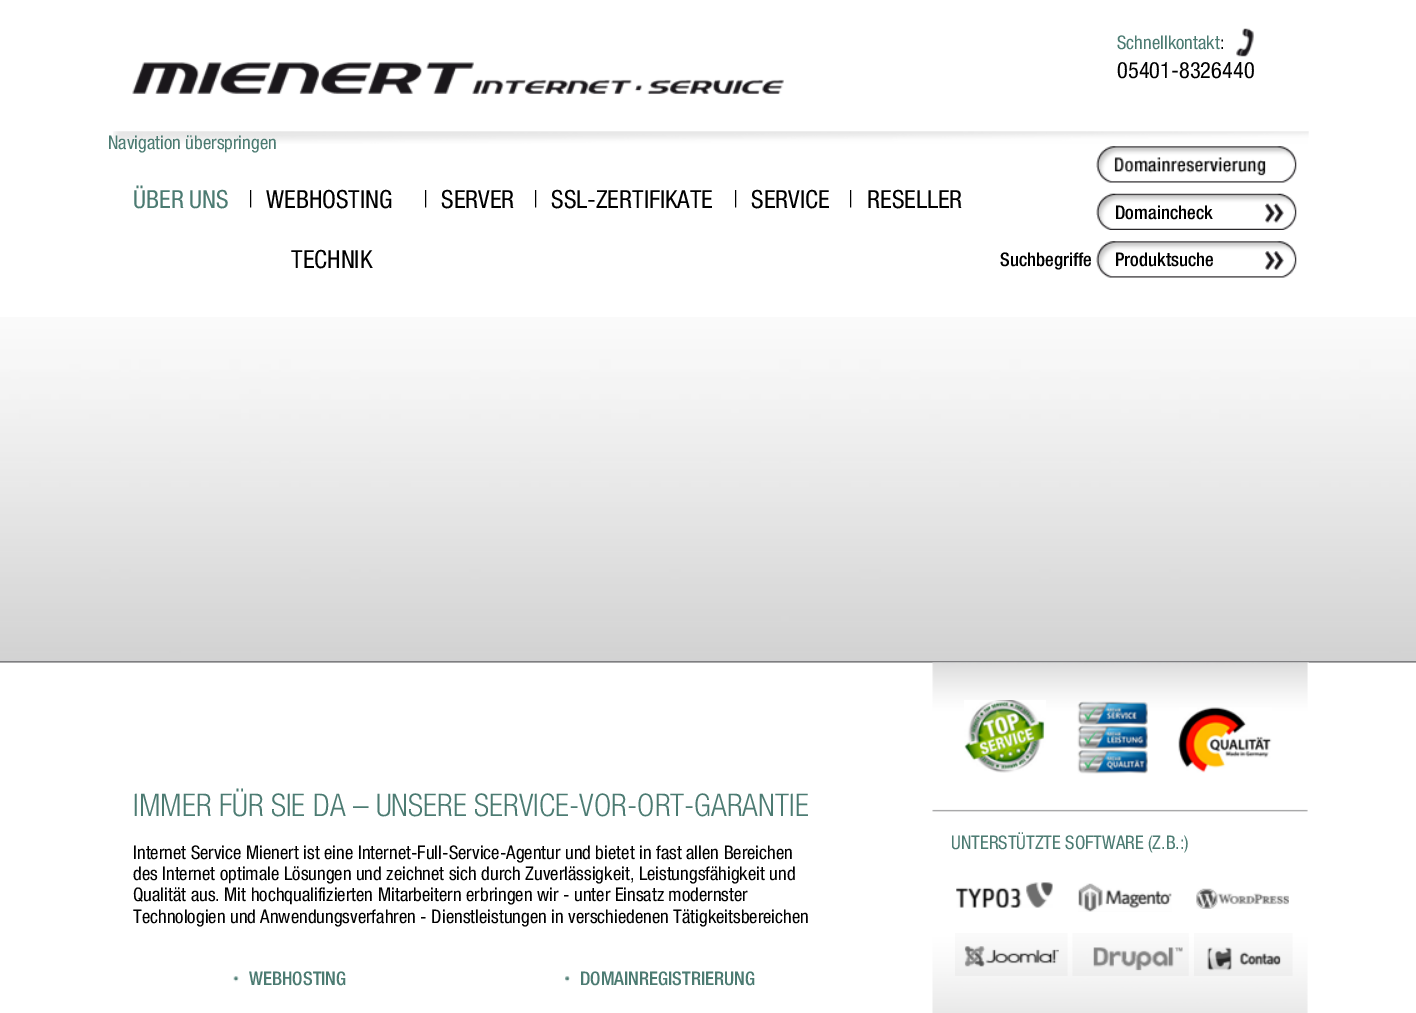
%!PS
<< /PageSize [1416 1013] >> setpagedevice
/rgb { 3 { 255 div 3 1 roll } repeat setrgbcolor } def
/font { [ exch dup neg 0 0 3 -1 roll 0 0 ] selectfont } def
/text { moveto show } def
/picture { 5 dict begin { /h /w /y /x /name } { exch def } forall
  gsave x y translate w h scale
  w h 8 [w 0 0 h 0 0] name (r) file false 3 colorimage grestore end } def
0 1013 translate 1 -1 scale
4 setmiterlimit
255 255 255 rgb
0 0 1416 1013 rectfill
(img_01.rgb) 0 317 1416 346 picture
(img_02.rgb) 132 62 652 32 picture
(img_03.rgb) 1236 28 18 29 picture
(img_04.rgb) 113 131 1196 13 picture
(img_05.rgb) 250 190 2 18 picture
(img_05.rgb) 425 190 2 18 picture
(img_05.rgb) 535 190 2 18 picture
(img_05.rgb) 735 190 2 18 picture
(img_05.rgb) 850 190 2 18 picture
(img_06.rgb) 1096 146 201 37 picture
(img_07.rgb) 1096 193 201 37 picture
(img_08.rgb) 1265 203 19 20 picture
(img_09.rgb) 1096 241 201 37 picture
(img_10.rgb) 1265 251 19 19 picture
(img_11.rgb) 233 976 6 6 picture
(img_12.rgb) 565 976 5 6 picture
(img_13.rgb) 932 662 377 351 picture
(img_14.rgb) 964 700 82 73 picture
(img_15.rgb) 1077 701 71 73 picture
(img_16.rgb) 1178 707 94 66 picture
(img_17.rgb) 932 809 376 3 picture
(img_18.rgb) 956 882 97 26 picture
(img_19.rgb) 1078 883 94 29 picture
(img_20.rgb) 1196 888 93 21 picture
(img_21.rgb) 955 933 113 43 picture
(img_22.rgb) 1072 933 117 43 picture
(img_23.rgb) 1194 933 99 43 picture
/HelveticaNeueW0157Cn-Regular 18.75 font
76 123 114 rgb
(Schnellkontakt) 1117 49 text
0 0 0 rgb
(:) 1220 49 text
/HelveticaNeueW0157Cn-Regular 22.5 font
(05401-8326440) 1117 78 text
/HelveticaNeueW0157Cn-Regular 18.75 font
76 123 114 rgb
(Navigation überspringen) 108 149 text
/HelveticaNeueW0157Cn-Regular 25 font
(ÜBER UNS) 133 208 text
0 0 0 rgb
(WEBHOSTING) 266 208 text
(TECHNIK) 291 268 text
(SERVER) 441 208 text
(SSL-ZERTIFIKATE) 551 208 text
(SERVICE) 751 208 text
(RESELLER) 867 208 text
/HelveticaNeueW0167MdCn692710-Regular 18.75 font
(Domaincheck) 1115 219 text
(Suchbegriffe) 1000 266 text
(Produktsuche) 1115 266 text
/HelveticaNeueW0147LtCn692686-Regular 31.25 font
76 123 114 rgb
(IMMER FÜR SIE DA – UNSERE SERVICE-VOR-ORT-GARANTIE) 133 816 text
/HelveticaNeueW0157Cn-Regular 18.75 font
0 0 0 rgb
(Internet Service Mienert ist eine Internet-Full-Service-Agentur und bietet in fast allen Bereichen) 133 859 text
(des Internet optimale Lösungen und zeichnet sich durch Zuverlässigkeit, Leistungsfähigkeit und) 133 880 text
(Qualität aus. Mit hochqualifizierten Mitarbeitern erbringen wir - unter Einsatz modernster) 133 901 text
(Technologien und Anwendungsverfahren - Dienstleistungen in verschiedenen Tätigkeitsbereichen) 133 923 text
/HelveticaNeueW0167MdCn692710-Regular 18.75 font
76 123 114 rgb
(WEBHOSTING) 249 985 text
(DOMAINREGISTRIERUNG) 580 985 text
/HelveticaNeueW0157Cn-Regular 18.75 font
(UNTERSTÜTZTE SOFTWARE \(Z.B.:\)) 951 849 text
showpage
